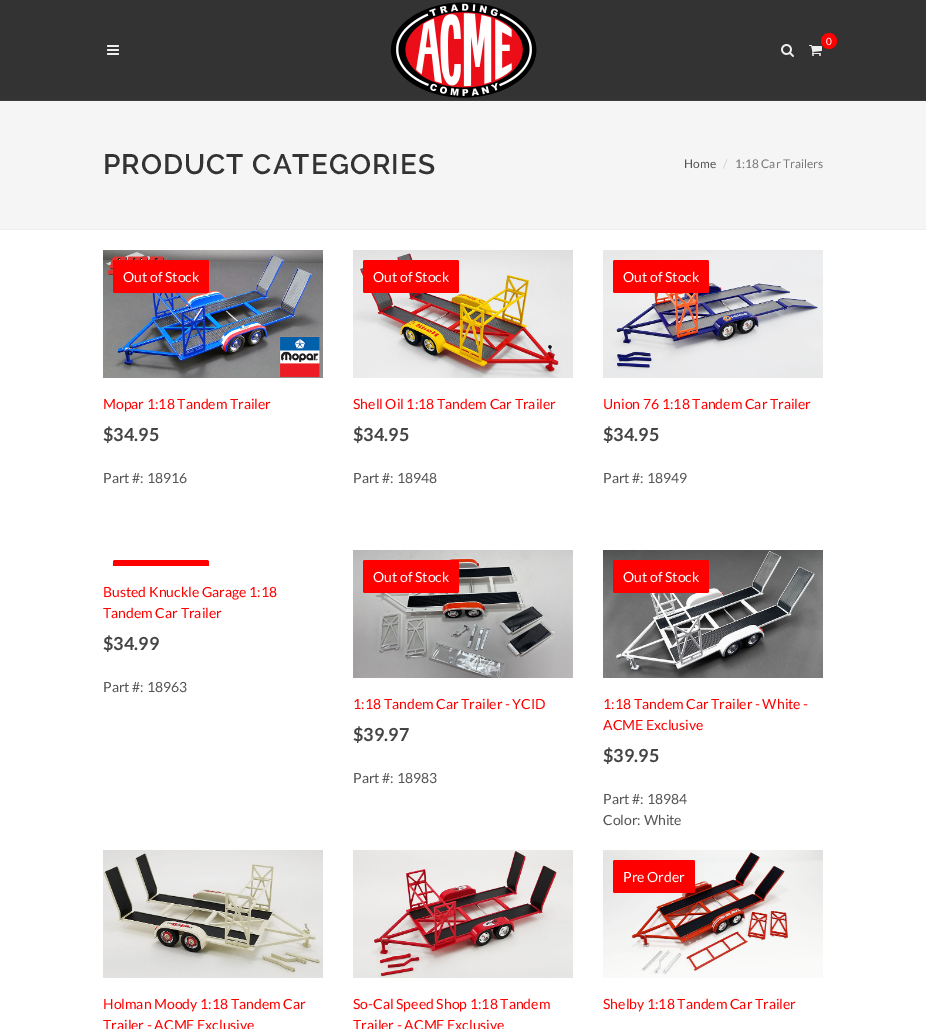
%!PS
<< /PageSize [926 1029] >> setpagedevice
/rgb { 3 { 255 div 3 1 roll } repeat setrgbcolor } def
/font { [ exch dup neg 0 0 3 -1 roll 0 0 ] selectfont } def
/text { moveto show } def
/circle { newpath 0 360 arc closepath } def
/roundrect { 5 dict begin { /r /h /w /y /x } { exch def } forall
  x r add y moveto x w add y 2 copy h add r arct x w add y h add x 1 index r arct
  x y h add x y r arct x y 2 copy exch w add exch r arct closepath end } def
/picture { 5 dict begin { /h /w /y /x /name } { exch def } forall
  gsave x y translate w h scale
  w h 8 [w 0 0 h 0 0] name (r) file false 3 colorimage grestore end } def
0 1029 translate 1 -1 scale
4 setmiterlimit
255 255 255 rgb
0 0 926 1029 rectfill
51 51 51 rgb
0 0 926 100 rectfill
61 61 61 rgb
0 100 926 1 rectfill
(img_01.rgb) 390 2 147 96 picture
(img_02.rgb) 809 45 13 11 picture
255 0 0 rgb
829 41 8 circle fill
(img_03.rgb) 781 44 13 13 picture
(img_04.rgb) 107 45 12 10 picture
245 245 245 rgb
0 101 926 128 rectfill
238 238 238 rgb
0 229 926 1 rectfill
(img_05.rgb) 103 250 220 128 picture
255 0 0 rgb
113 260 96 33 2 roundrect fill
(img_06.rgb) 353 250 220 128 picture
363 260 96 33 2 roundrect fill
(img_07.rgb) 603 250 220 128 picture
613 260 96 33 2 roundrect fill
115 560 moveto 92 0 rlineto 1 0 2 1 2 2 rcurveto 0 4 rlineto -96 0 rlineto 0 -4 rlineto 0 -1 1 -2 2 -2 rcurveto closepath fill
(img_08.rgb) 353 550 220 128 picture
363 560 96 33 2 roundrect fill
(img_09.rgb) 603 550 220 128 picture
613 560 96 33 2 roundrect fill
(img_10.rgb) 103 850 220 128 picture
(img_11.rgb) 353 850 220 128 picture
(img_12.rgb) 603 850 220 128 picture
613 860 82 33 2 roundrect fill
/Lato-Regular 10 font
255 255 255 rgb
(0) 826 45 text
/Raleway-SemiBold 28 font
51 51 51 rgb
103 174 moveto 1 0 (PRODUCT CATEGORIES) ashow
/Lato-Regular 12 font
85 85 85 rgb
(Home) 684 168 text
204 204 204 rgb
(/) 723 168 text
119 119 119 rgb
(1:18 Car Trailers) 735 168 text
/Lato-Regular 14 font
255 255 255 rgb
(Out of Stock) 123 282 text
255 0 0 rgb
(Mopar 1:18 Tandem Trailer) 103 409 text
/Lato-Bold 18 font
68 68 68 rgb
($34.95) 103 441 text
/Lato-Regular 14 font
85 85 85 rgb
(Part #: 18916) 103 483 text
255 255 255 rgb
(Out of Stock) 373 282 text
255 0 0 rgb
(Shell Oil 1:18 Tandem Car Trailer) 353 409 text
/Lato-Bold 18 font
68 68 68 rgb
($34.95) 353 441 text
/Lato-Regular 14 font
85 85 85 rgb
(Part #: 18948) 353 483 text
255 255 255 rgb
(Out of Stock) 623 282 text
255 0 0 rgb
(Union 76 1:18 Tandem Car Trailer) 603 409 text
/Lato-Bold 18 font
68 68 68 rgb
($34.95) 603 441 text
/Lato-Regular 14 font
85 85 85 rgb
(Part #: 18949) 603 483 text
255 0 0 rgb
(Busted Knuckle Garage 1:18) 103 597 text
(Tandem Car Trailer) 103 618 text
/Lato-Bold 18 font
68 68 68 rgb
($34.99) 103 650 text
/Lato-Regular 14 font
85 85 85 rgb
(Part #: 18963) 103 692 text
255 255 255 rgb
(Out of Stock) 373 582 text
255 0 0 rgb
(1:18 Tandem Car Trailer - YCID) 353 709 text
/Lato-Bold 18 font
68 68 68 rgb
($39.97) 353 741 text
/Lato-Regular 14 font
85 85 85 rgb
(Part #: 18983) 353 783 text
255 255 255 rgb
(Out of Stock) 623 582 text
255 0 0 rgb
(1:18 Tandem Car Trailer - White -) 603 709 text
(ACME Exclusive) 603 730 text
/Lato-Bold 18 font
68 68 68 rgb
($39.95) 603 762 text
/Lato-Regular 14 font
85 85 85 rgb
(Part #: 18984) 603 804 text
(Color: White) 603 825 text
255 0 0 rgb
(Holman Moody 1:18 Tandem Car) 103 1009 text
(Trailer - ACME Exclusive) 103 1030 text
(So-Cal Speed Shop 1:18 Tandem) 353 1009 text
(Trailer - ACME Exclusive) 353 1030 text
255 255 255 rgb
(Pre Order) 623 882 text
255 0 0 rgb
(Shelby 1:18 Tandem Car Trailer) 603 1009 text
showpage
